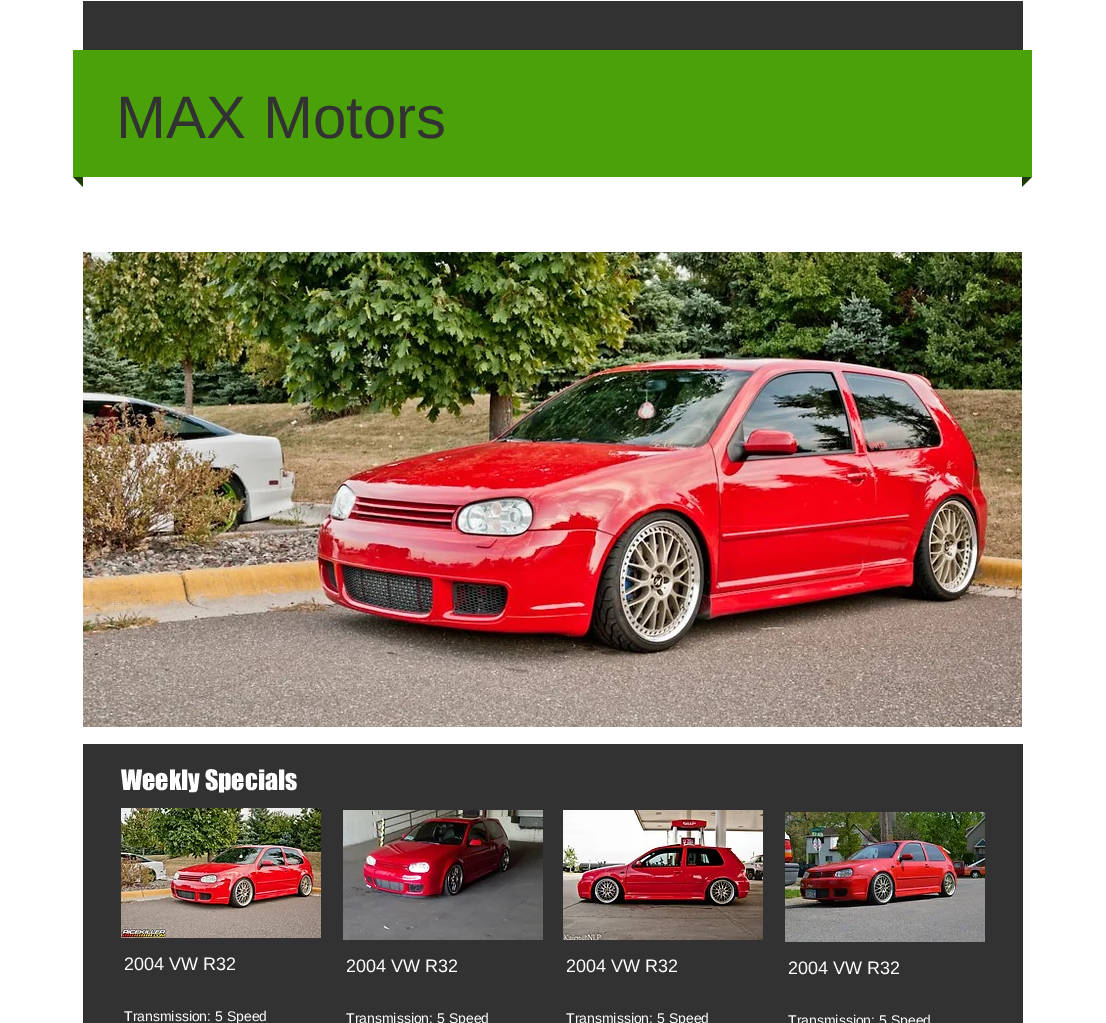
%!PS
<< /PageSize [1106 1023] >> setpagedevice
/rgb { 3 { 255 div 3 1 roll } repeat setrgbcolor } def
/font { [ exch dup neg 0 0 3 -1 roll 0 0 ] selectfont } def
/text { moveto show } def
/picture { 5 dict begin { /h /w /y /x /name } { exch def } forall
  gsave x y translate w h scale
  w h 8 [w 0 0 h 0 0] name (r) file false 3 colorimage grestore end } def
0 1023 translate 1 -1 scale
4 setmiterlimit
255 255 255 rgb
0 0 1106 1023 rectfill
50 50 50 rgb
83 1 940 49 rectfill
75 161 10 rgb
73 50 959 127 rectfill
31 59 5 rgb
73 177 moveto 10 0 rlineto 0 10 rlineto closepath fill
1022 177 moveto 10 0 rlineto -10 10 rlineto closepath fill
(img_01.rgb) 83 252 939 475 picture
50 50 50 rgb
83 744 940 279 rectfill
(img_02.rgb) 121 808 200 130 picture
(img_03.rgb) 343 810 200 130 picture
(img_04.rgb) 563 810 200 130 picture
(img_05.rgb) 785 812 200 130 picture
/LiberationSans-Regular 60 font
(MAX Motors) 116 138 text
/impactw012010-Regular 26 font
255 255 255 rgb
(Weekly Specials) 121 790 text
/LiberationSans-Regular 18 font
(2004 VW R32) 124 970 text
(2004 VW R32) 346 972 text
(2004 VW R32) 566 972 text
(2004 VW R32) 788 974 text
/LiberationSans-Regular 14 font
(Transmission: 5 Speed) 124 1021 text
(Transmission: 5 Speed) 346 1023 text
(Transmission: 5 Speed) 566 1023 text
(Transmission: 5 Speed) 788 1025 text
showpage
